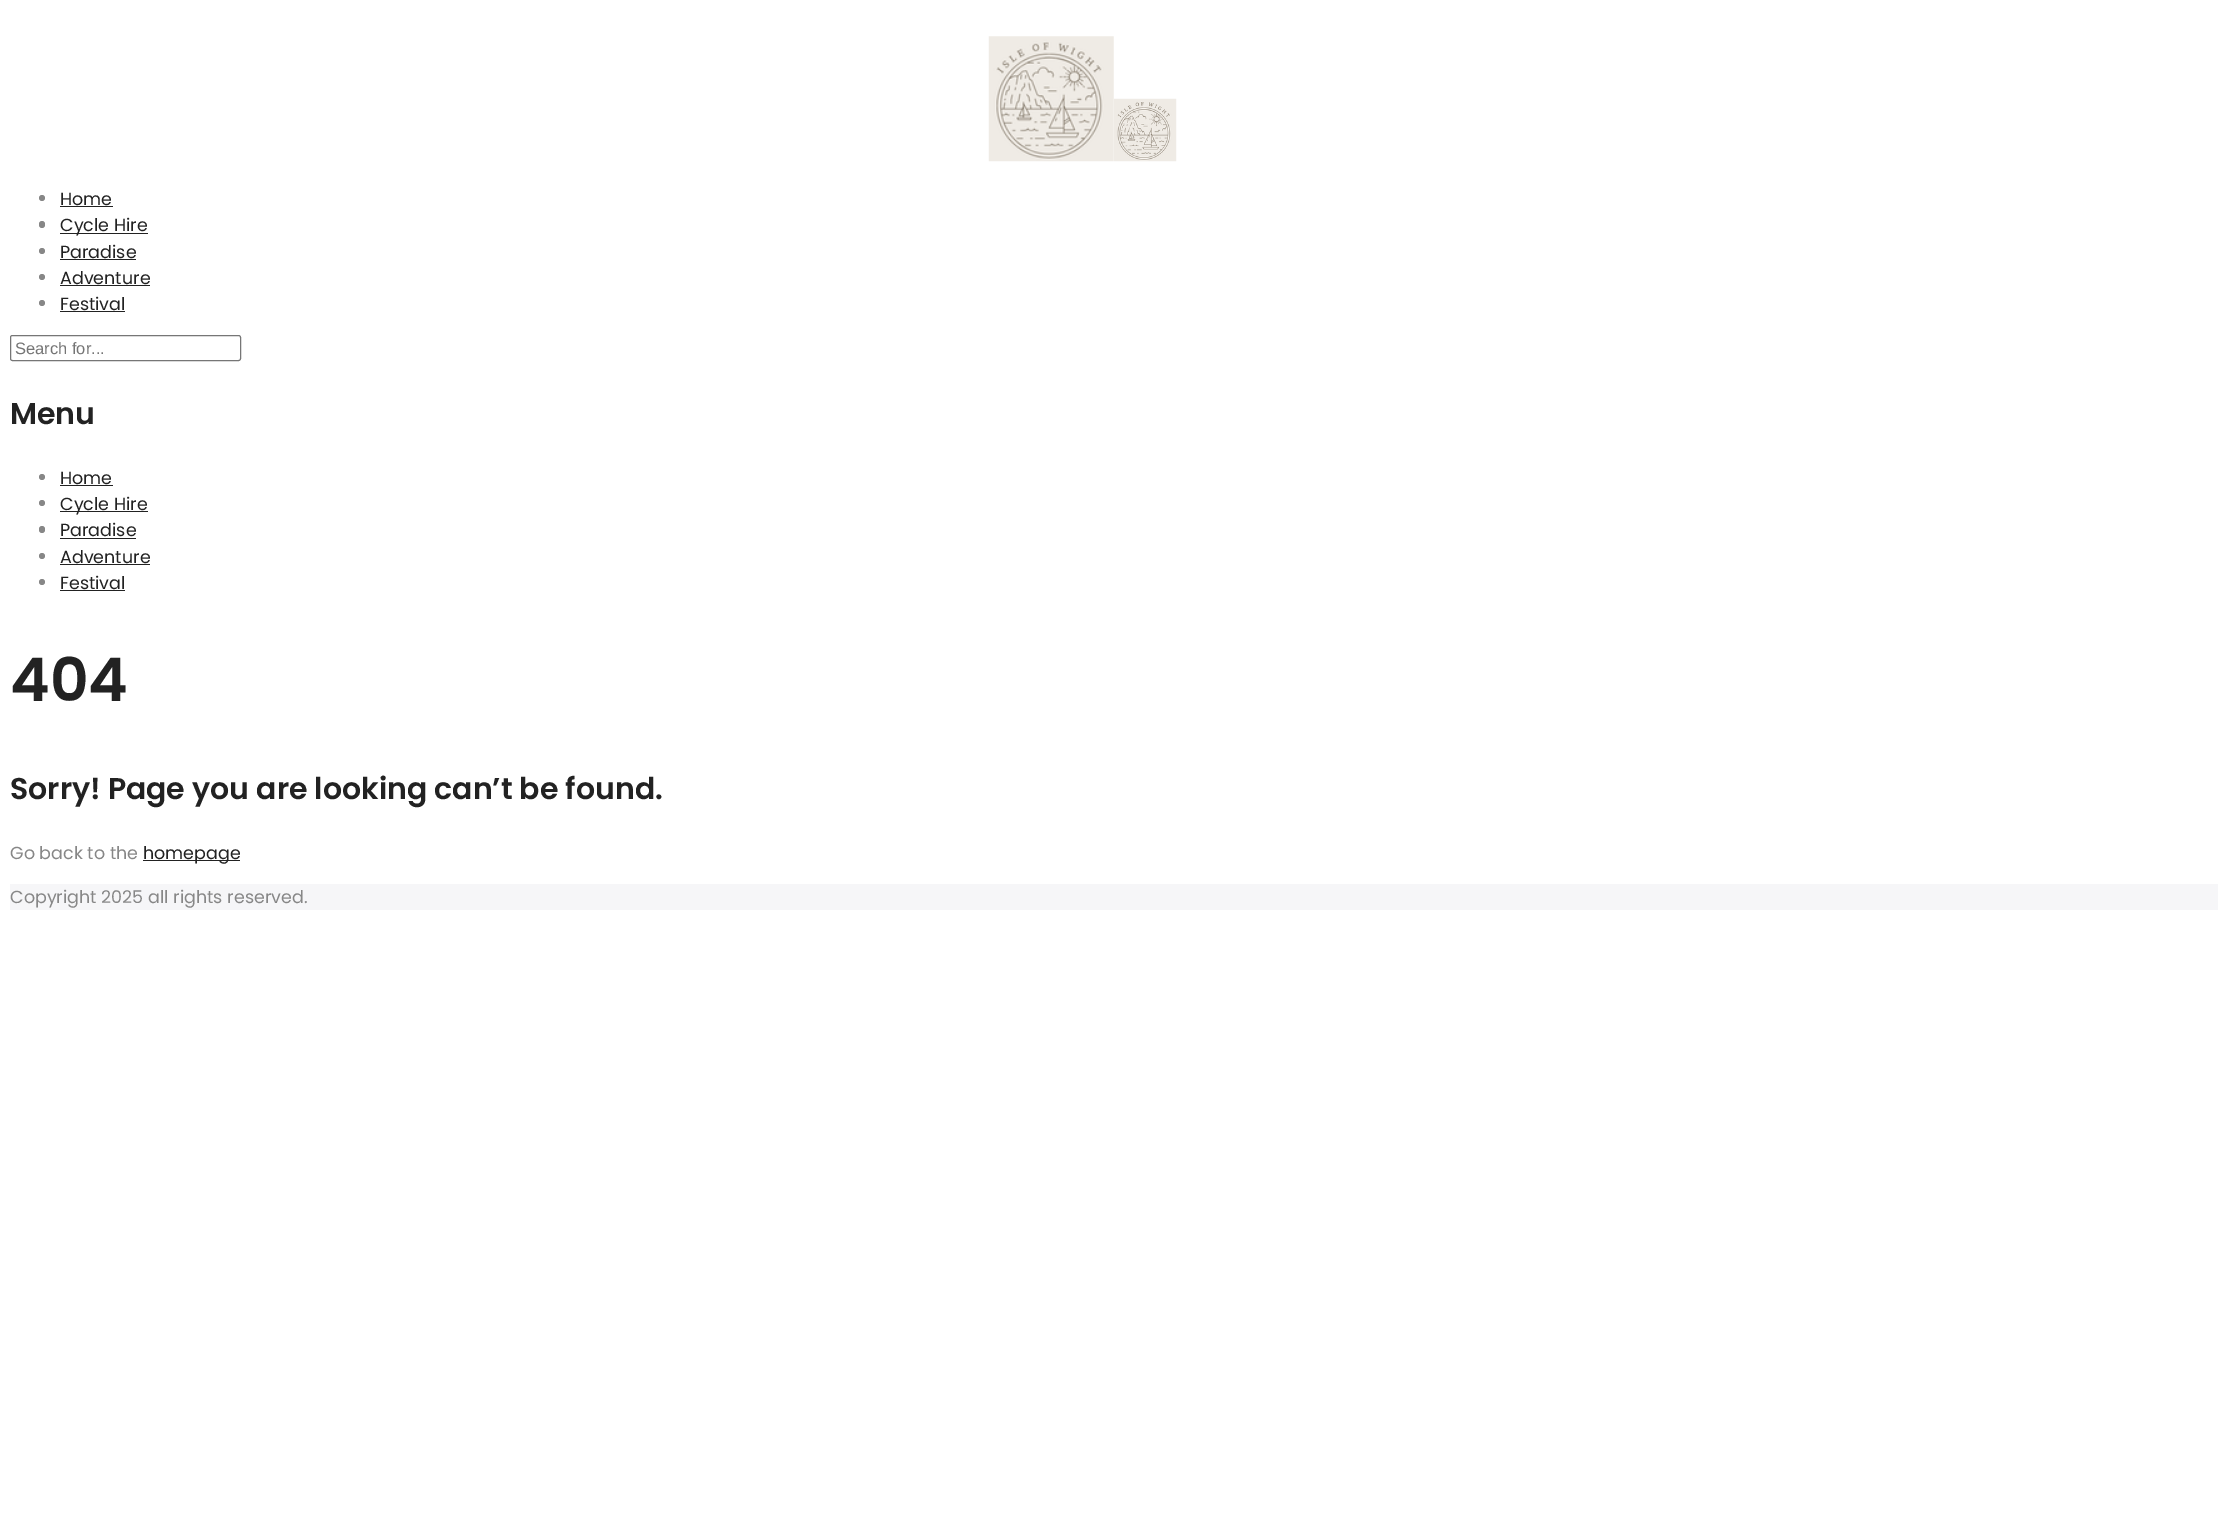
%!PS
<< /PageSize [2227 1518] >> setpagedevice
/rgb { 3 { 255 div 3 1 roll } repeat setrgbcolor } def
/font { [ exch dup neg 0 0 3 -1 roll 0 0 ] selectfont } def
/text { moveto show } def
/circle { newpath 0 360 arc closepath } def
/roundrect { 5 dict begin { /r /h /w /y /x } { exch def } forall
  x r add y moveto x w add y 2 copy h add r arct x w add y h add x 1 index r arct
  x y h add x y r arct x y 2 copy exch w add exch r arct closepath end } def
/picture { 5 dict begin { /h /w /y /x /name } { exch def } forall
  gsave x y translate w h scale
  w h 8 [w 0 0 h 0 0] name (r) file false 3 colorimage grestore end } def
0 1518 translate 1 -1 scale
4 setmiterlimit
255 255 255 rgb
0 0 2227 1518 rectfill
(img_01.rgb) 988 36 126 126 picture
(img_02.rgb) 1114 98 63 64 picture
135 135 135 rgb
42 198 3 circle fill
34 34 34 rgb
60 206 53 1 rectfill
135 135 135 rgb
39 221 6 7 3 roundrect fill
34 34 34 rgb
60 233 88 1 rectfill
135 135 135 rgb
42 251 3 circle fill
34 34 34 rgb
60 259 76 1 rectfill
135 135 135 rgb
42 277 3 circle fill
34 34 34 rgb
60 285 90 1 rectfill
135 135 135 rgb
42 303 3 circle fill
34 34 34 rgb
60 311 65 1 rectfill
118 118 118 rgb
10.5 335.5 230 25 2 roundrect stroke
135 135 135 rgb
42 477 3 circle fill
34 34 34 rgb
60 485 53 1 rectfill
135 135 135 rgb
42 503 3 circle fill
34 34 34 rgb
60 511 88 1 rectfill
135 135 135 rgb
39 526 6 7 3 roundrect fill
34 34 34 rgb
60 538 76 1 rectfill
135 135 135 rgb
42 556 3 circle fill
34 34 34 rgb
60 564 90 1 rectfill
135 135 135 rgb
42 582 3 circle fill
34 34 34 rgb
60 590 65 1 rectfill
143 860 97 1 rectfill
246 246 248 rgb
10 884 2208 26 rectfill
/Poppins-Regular 17.5 font
34 34 34 rgb
(Home) 60 205 text
(Cycle Hire) 60 231 text
(Paradise) 60 258 text
(Adventure) 60 284 text
(Festival) 60 310 text
/LiberationSans-Regular 16.5 font
117 117 117 rgb
(Search for...) 15 354 text
/Poppins-SemiBold 30 font
34 34 34 rgb
(Menu) 10 424 text
/Poppins-Regular 17.5 font
(Home) 60 484 text
(Cycle Hire) 60 510 text
(Paradise) 60 536 text
(Adventure) 60 563 text
(Festival) 60 589 text
/Poppins-SemiBold 60 font
(404) 10 701 text
/Poppins-SemiBold 30 font
(Sorry! Page you are looking can’t be found.) 10 799 text
/Poppins-Regular 17.5 font
135 135 135 rgb
(Go back to the) 10 859 text
34 34 34 rgb
(homepage) 143 859 text
135 135 135 rgb
(Copyright 2025 all rights reserved.) 10 903 text
showpage
